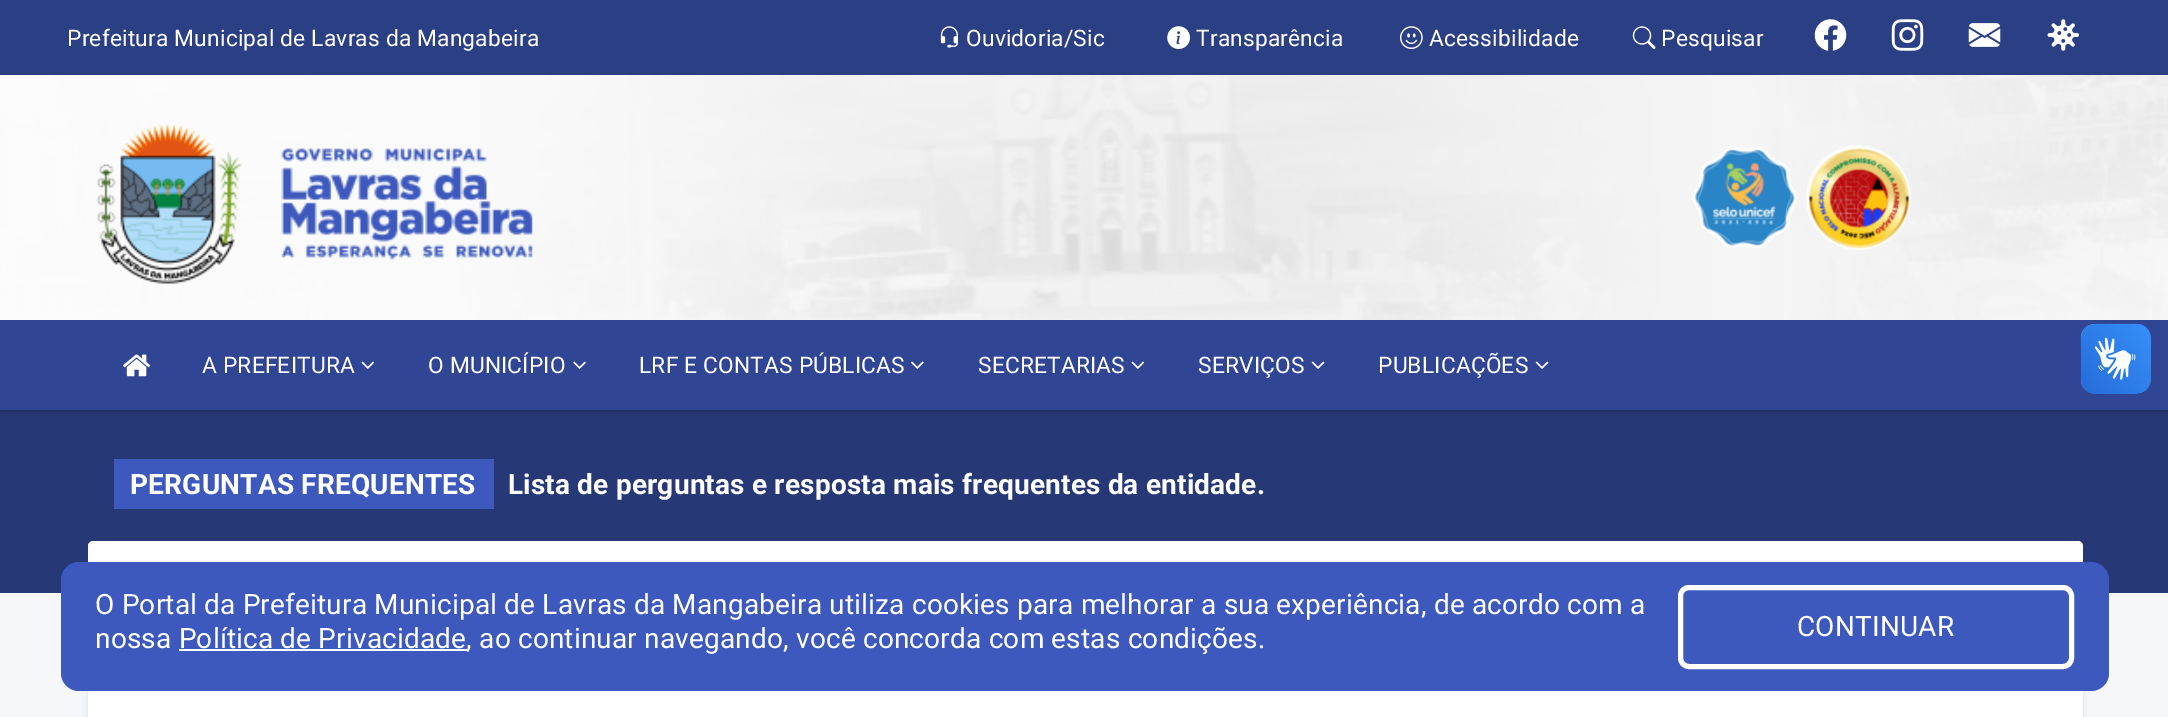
%!PS
<< /PageSize [2168 717] /PageUsesTransparency true >> setpagedevice
/rgb { 3 { 255 div 3 1 roll } repeat setrgbcolor } def
/font { [ exch dup neg 0 0 3 -1 roll 0 0 ] selectfont } def
/alpha { dup .setfillconstantalpha .setstrokeconstantalpha } def
/roundrect { 5 dict begin { /r /h /w /y /x } { exch def } forall
  x r add y moveto x w add y 2 copy h add r arct x w add y h add x 1 index r arct
  x y h add x y r arct x y 2 copy exch w add exch r arct closepath end } def
/shadow { 12 dict begin { /a /b /q /h /w /y /x } { exch def } forall gsave /was 0 def
  9 -2 -9 { dup b mul 4 div /e exch def 1 sub .425 mul 2.718 exch exp 1 add a .99 .min exch div /now exch def
    1 1 now sub 1 was sub div sub alpha /was now def
    w h .min e 2 mul add 0 gt { x e sub y e sub w e 2 mul add h e 2 mul add
      q e add b .6 mul add w h .min 2 div e add .min 0 .max roundrect fill } if } for grestore end } def
/picture { 5 dict begin { /h /w /y /x /name } { exch def } forall
  gsave x y translate w h scale
  w h 8 [w 0 0 h 0 0] name (r) file false 3 colorimage grestore end } def
0 .pushpdf14devicefilter
0 717 translate 1 -1 scale
4 setmiterlimit
246 247 248 rgb
0 0 2168 717 rectfill
3 0 71 rgb
88 543 1995 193 11 2.5 0.09 shadow
38 56 118 rgb
0 410 2168 183 rectfill
0 0 0 rgb
0 2 2168 409 0 2 0.3 shadow
(img_01.rgb) 0 75 2168 245 picture
43 63 133 rgb
0 0 2168 75 rectfill
(img_02.rgb) 940 26 18 22 picture
(img_03.rgb) 1167 26 23 23 picture
(img_04.rgb) 1400 26 23 23 picture
(img_05.rgb) 1632 26 24 23 picture
(img_06.rgb) 1814 19 33 32 picture
(img_07.rgb) 1891 19 33 32 picture
(img_08.rgb) 1968 23 33 24 picture
(img_09.rgb) 2047 19 32 32 picture
(img_10.rgb) 96 124 437 160 picture
(img_11.rgb) 1692 147 105 101 picture
(img_12.rgb) 1806 145 105 105 picture
48 70 148 rgb
0 320 2168 90 rectfill
(img_13.rgb) 123 354 28 23 picture
(img_14.rgb) 361 361 14 8 picture
(img_15.rgb) 573 361 13 8 picture
(img_16.rgb) 911 361 13 8 picture
(img_14.rgb) 1131 361 14 8 picture
(img_17.rgb) 1311 361 14 8 picture
(img_17.rgb) 1535 361 14 8 picture
(img_18.rgb) 2080 323 71 71 picture
(img_19.rgb) 2081 324 70 70 picture
61 89 189 rgb
114 459 380 50 rectfill
255 255 255 rgb
88 691 1995 26 rectfill
88 541 1995 70 5 roundrect fill
61 89 189 rgb
61 562 2048 129 18 roundrect fill
255 255 255 rgb
179 649 288 2 rectfill
5 setlinewidth
1680.5 587.5 391 79 8.5 roundrect stroke
/Roboto-Regular 22.75 font
67 46 moveto 0.18 0 (Prefeitura Municipal de Lavras da Mangabeira) ashow
966 46 moveto 0.18 0 (Ouvidoria/Sic) ashow
1196 46 moveto 0.18 0 (Transparência) ashow
1429 46 moveto 0.18 0 (Acessibilidade) ashow
1661 46 moveto 0.18 0 (Pesquisar) ashow
202 373 moveto 0.18 0 (A PREFEITURA) ashow
428 373 moveto 0.18 0 (O MUNICÍPIO) ashow
639 373 moveto 0.18 0 (LRF E CONTAS PÚBLICAS) ashow
978 373 moveto 0.18 0 (SECRETARIAS) ashow
1198 373 moveto 0.18 0 (SERVIÇOS) ashow
1378 373 moveto 0.18 0 (PUBLICAÇÕES) ashow
/Roboto-Bold 28 font
130 494 moveto 0.18 0 (PERGUNTAS FREQUENTES) ashow
508 494 moveto 0.18 0 (Lista de perguntas e resposta mais frequentes da entidade.) ashow
/Roboto-Regular 28 font
95 614 moveto 0.18 0 (O Portal da Prefeitura Municipal de Lavras da Mangabeira utiliza cookies para melhorar a sua experiência, de acordo com a) ashow
95 648 moveto 0.18 0 (nossa Política de Privacidade, ao continuar navegando, você concorda com estas condições.) ashow
1797 636 moveto 0.18 0 (CONTINUAR) ashow
.poppdf14devicefilter showpage
